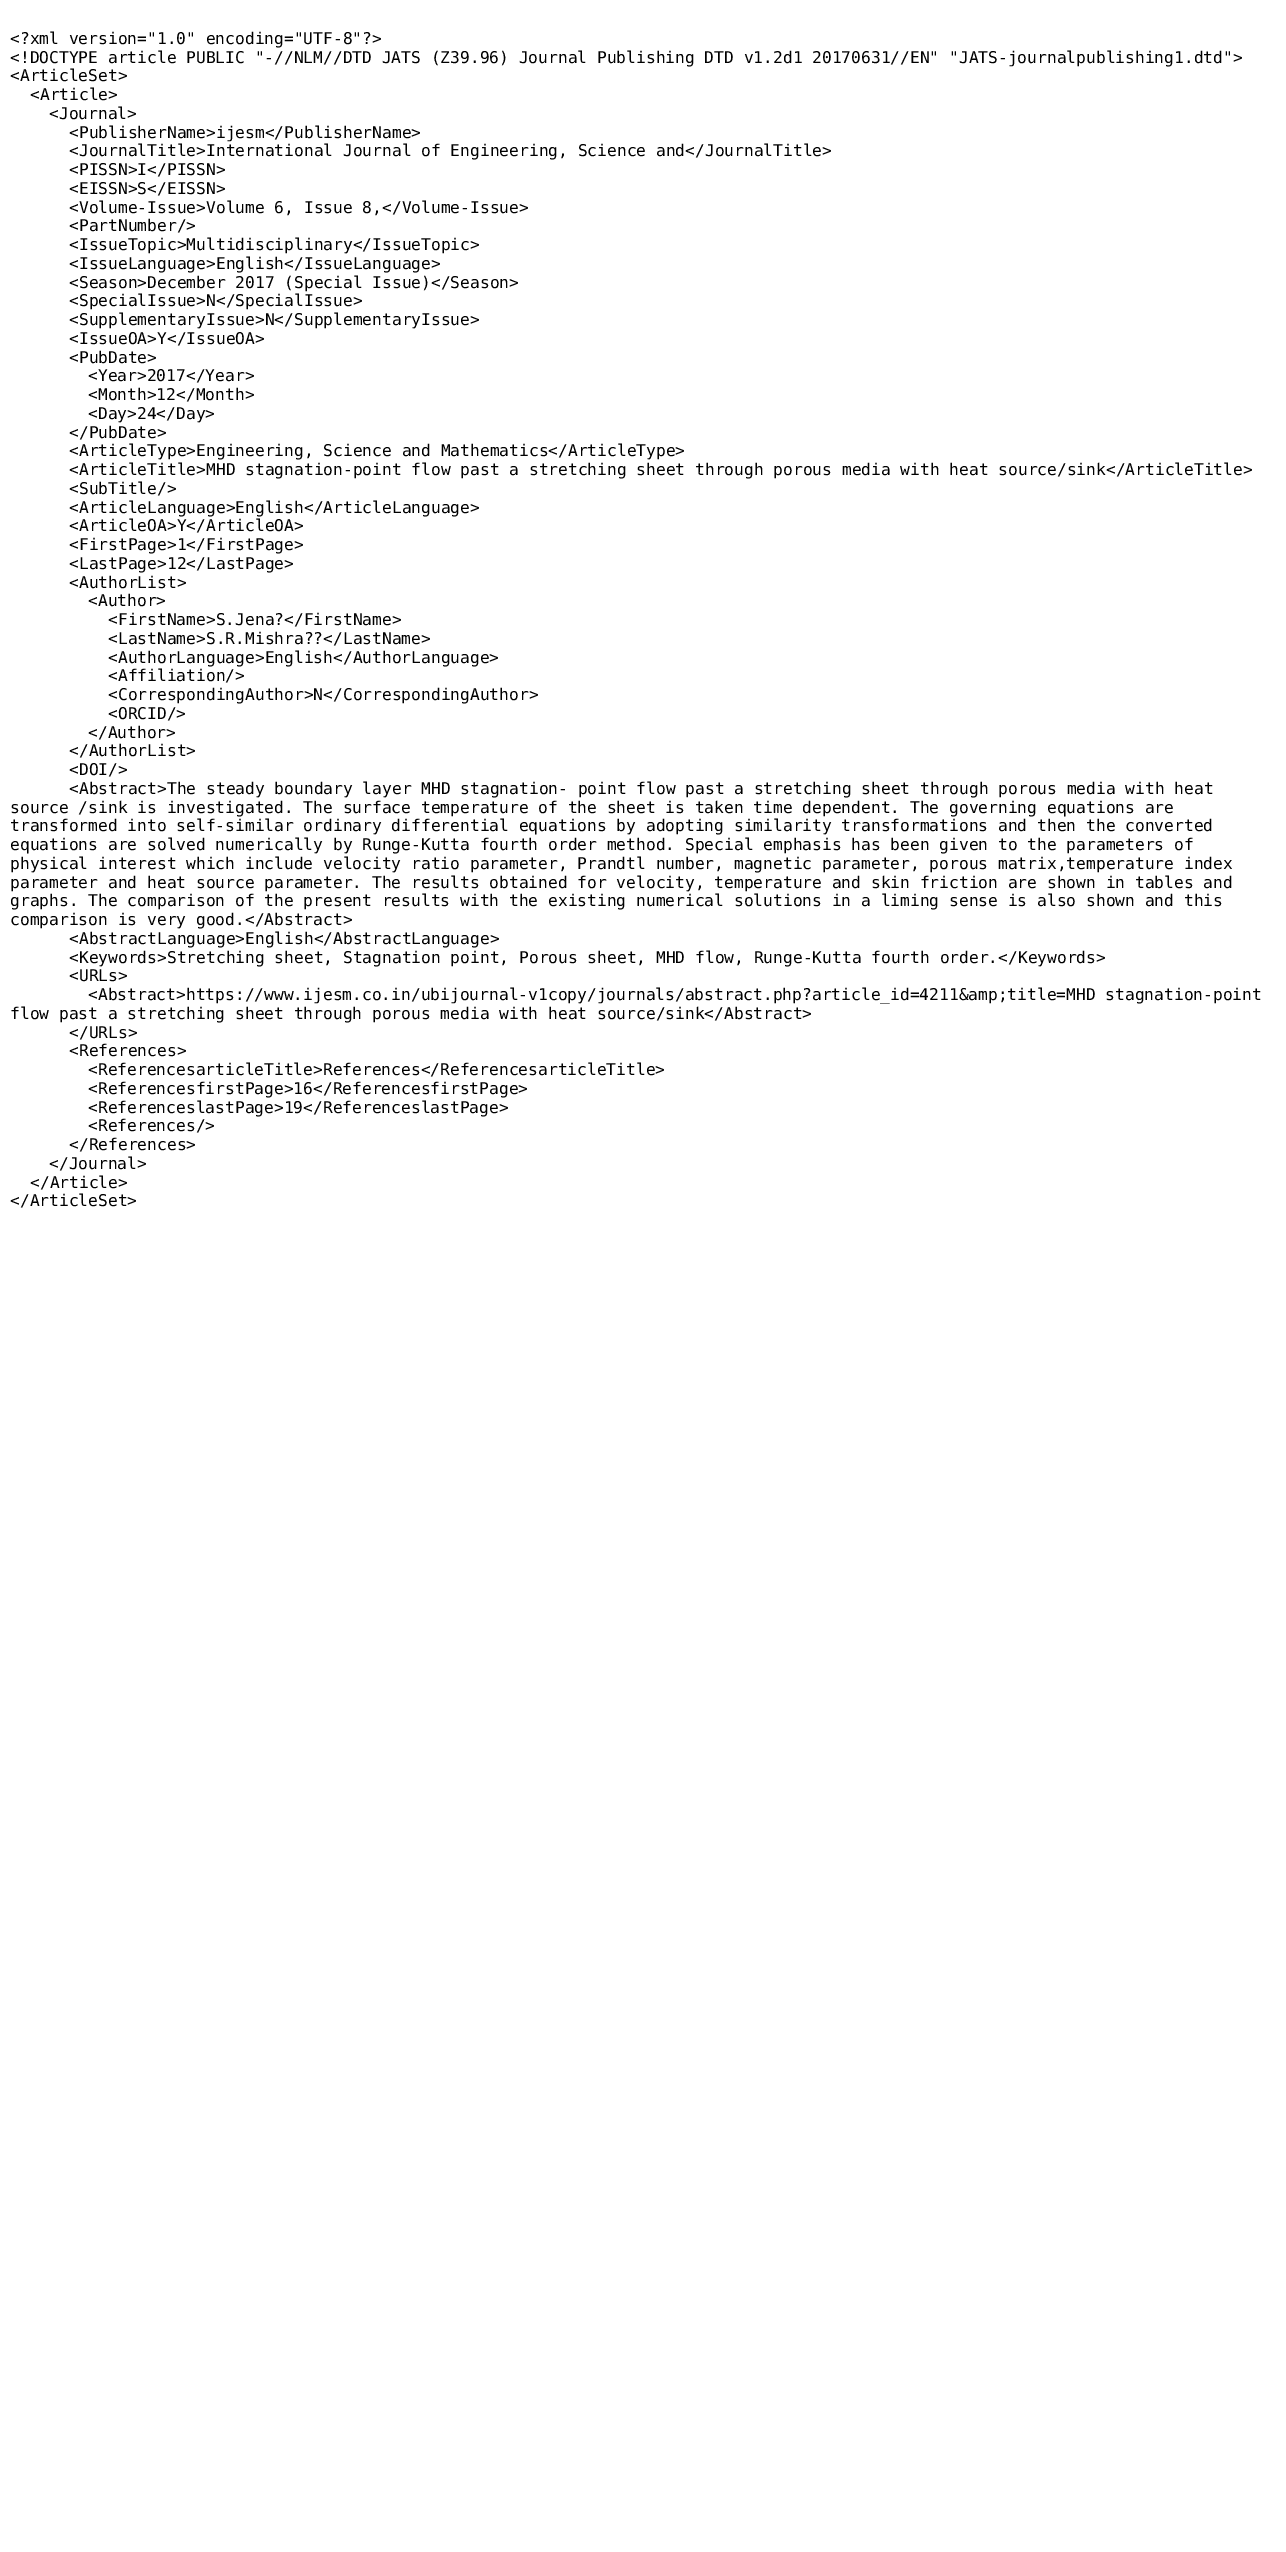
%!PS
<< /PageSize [1286 2552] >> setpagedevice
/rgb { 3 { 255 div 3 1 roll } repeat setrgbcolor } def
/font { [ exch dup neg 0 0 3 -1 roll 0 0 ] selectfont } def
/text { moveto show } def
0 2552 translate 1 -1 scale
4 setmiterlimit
255 255 255 rgb
0 0 1286 2552 rectfill
/DejaVuSansMono-Regular 16.25 font
0 0 0 rgb
(<?xml version="1.0" encoding="UTF-8"?>) 10 44 text
(<!DOCTYPE article PUBLIC "-//NLM//DTD JATS \(Z39.96\) Journal Publishing DTD v1.2d1 20170631//EN" "JATS-journalpublishing1.dtd">) 10 63 text
(<ArticleSet>) 10 81 text
(<Article>) 30 100 text
(<Journal>) 49 119 text
(<PublisherName>ijesm</PublisherName>) 69 138 text
(<JournalTitle>International Journal of Engineering, Science and</JournalTitle>) 69 156 text
(<PISSN>I</PISSN>) 69 175 text
(<EISSN>S</EISSN>) 69 194 text
(<Volume-Issue>Volume 6, Issue 8,</Volume-Issue>) 69 213 text
(<PartNumber/>) 69 231 text
(<IssueTopic>Multidisciplinary</IssueTopic>) 69 250 text
(<IssueLanguage>English</IssueLanguage>) 69 269 text
(<Season>December 2017 \(Special Issue\)</Season>) 69 288 text
(<SpecialIssue>N</SpecialIssue>) 69 306 text
(<SupplementaryIssue>N</SupplementaryIssue>) 69 325 text
(<IssueOA>Y</IssueOA>) 69 344 text
(<PubDate>) 69 363 text
(<Year>2017</Year>) 88 381 text
(<Month>12</Month>) 88 400 text
(<Day>24</Day>) 88 419 text
(</PubDate>) 69 438 text
(<ArticleType>Engineering, Science and Mathematics</ArticleType>) 69 456 text
(<ArticleTitle>MHD stagnation-point flow past a stretching sheet through porous media with heat source/sink</ArticleTitle>) 69 475 text
(<SubTitle/>) 69 494 text
(<ArticleLanguage>English</ArticleLanguage>) 69 513 text
(<ArticleOA>Y</ArticleOA>) 69 531 text
(<FirstPage>1</FirstPage>) 69 550 text
(<LastPage>12</LastPage>) 69 569 text
(<AuthorList>) 69 588 text
(<Author>) 88 606 text
(<FirstName>S.Jena?</FirstName>) 108 625 text
(<LastName>S.R.Mishra??</LastName>) 108 644 text
(<AuthorLanguage>English</AuthorLanguage>) 108 663 text
(<Affiliation/>) 108 681 text
(<CorrespondingAuthor>N</CorrespondingAuthor>) 108 700 text
(<ORCID/>) 108 719 text
(</Author>) 88 738 text
(</AuthorList>) 69 756 text
(<DOI/>) 69 775 text
(<Abstract>The steady boundary layer MHD stagnation- point flow past a stretching sheet through porous media with heat) 69 794 text
(source /sink is investigated. The surface temperature of the sheet is taken time dependent. The governing equations are) 10 813 text
(transformed into self-similar ordinary differential equations by adopting similarity transformations and then the converted) 10 831 text
(equations are solved numerically by Runge-Kutta fourth order method. Special emphasis has been given to the parameters of) 10 850 text
(physical interest which include velocity ratio parameter, Prandtl number, magnetic parameter, porous matrix,temperature index) 10 869 text
(parameter and heat source parameter. The results obtained for velocity, temperature and skin friction are shown in tables and) 10 888 text
(graphs. The comparison of the present results with the existing numerical solutions in a liming sense is also shown and this) 10 906 text
(comparison is very good.</Abstract>) 10 925 text
(<AbstractLanguage>English</AbstractLanguage>) 69 944 text
(<Keywords>Stretching sheet, Stagnation point, Porous sheet, MHD flow, Runge-Kutta fourth order.</Keywords>) 69 963 text
(<URLs>) 69 981 text
(<Abstract>https://www.ijesm.co.in/ubijournal-v1copy/journals/abstract.php?article_id=4211&amp;title=MHD stagnation-point) 88 1000 text
(flow past a stretching sheet through porous media with heat source/sink</Abstract>) 10 1019 text
(</URLs>) 69 1038 text
(<References>) 69 1056 text
(<ReferencesarticleTitle>References</ReferencesarticleTitle>) 88 1075 text
(<ReferencesfirstPage>16</ReferencesfirstPage>) 88 1094 text
(<ReferenceslastPage>19</ReferenceslastPage>) 88 1113 text
(<References/>) 88 1131 text
(</References>) 69 1150 text
(</Journal>) 49 1169 text
(</Article>) 30 1188 text
(</ArticleSet>) 10 1206 text
showpage
